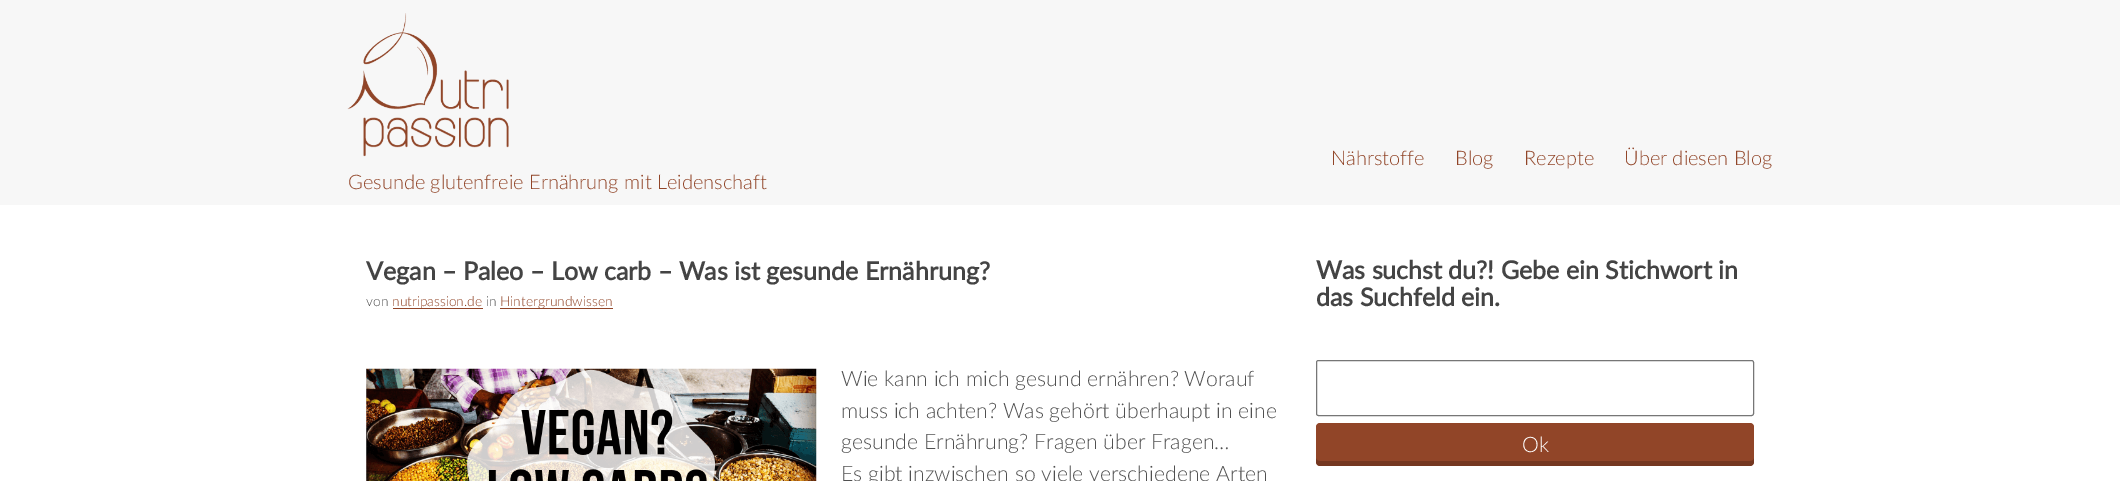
%!PS
<< /PageSize [2120 481] /PageUsesTransparency true >> setpagedevice
/rgb { 3 { 255 div 3 1 roll } repeat setrgbcolor } def
/font { [ exch dup neg 0 0 3 -1 roll 0 0 ] selectfont } def
/text { moveto show } def
/alpha { dup .setfillconstantalpha .setstrokeconstantalpha } def
/roundrect { 5 dict begin { /r /h /w /y /x } { exch def } forall
  x r add y moveto x w add y 2 copy h add r arct x w add y h add x 1 index r arct
  x y h add x y r arct x y 2 copy exch w add exch r arct closepath end } def
/picture { 5 dict begin { /h /w /y /x /name } { exch def } forall
  gsave x y translate w h scale
  w h 8 [w 0 0 h 0 0] name (r) file false 3 colorimage grestore end } def
0 .pushpdf14devicefilter
0 481 translate 1 -1 scale
4 setmiterlimit
255 255 255 rgb
0 0 2120 481 rectfill
247 247 247 rgb
0 0 2120 205 rectfill
(img_01.rgb) 347 13 162 144 picture
145 69 40 rgb
393 308 90 1 rectfill
500 308 113 1 rectfill
(img_02.rgb) 366 368 451 113 picture
118 118 118 rgb
1316.5 360.5 437 55 2 roundrect stroke
145 69 40 rgb
1316 423 438 43 4 roundrect fill
0.2 alpha
0 0 0 rgb
1316 458 moveto 0 4 rlineto 0 2 2 4 4 4 rcurveto 430 0 rlineto 2 0 4 -2 4 -4 rcurveto 0 -4 rlineto 0 2 -2 3 -4 3 rcurveto -430 0 rlineto -2 0 -4 -1 -4 -3 rcurveto closepath fill
/Lato-Light 20 font
1 alpha
145 69 40 rgb
(Nährstoffe) 1331 165 text
(Blog) 1455 165 text
(Rezepte) 1524 165 text
(Über diesen Blog) 1624 165 text
(Gesunde glutenfreie Ernährung mit Leidenschaft) 348 189 text
/Lato-Bold 25 font
68 68 68 rgb
(Vegan – Paleo – Low carb – Was ist gesunde Ernährung?) 366 280 text
/Lato-Light 13.75 font
80 80 80 rgb
(von) 366 306 text
145 69 40 rgb
(nutripassion.de) 392 306 text
80 80 80 rgb
(in) 486 306 text
145 69 40 rgb
(Hintergrundwissen) 500 306 text
/Lato-Light 21.25 font
80 80 80 rgb
(Wie kann ich mich gesund ernähren? Worauf) 841 386 text
(muss ich achten? Was gehört überhaupt in eine) 841 418 text
(gesunde Ernährung? Fragen über Fragen…) 841 449 text
(Es gibt inzwischen so viele verschiedene Arten) 841 481 text
/Lato-Bold 25 font
68 68 68 rgb
(Was suchst du?! Gebe ein Stichwort in) 1316 279 text
(das Suchfeld ein.) 1316 306 text
/Lato-Light 21.25 font
255 255 255 rgb
(Ok) 1522 452 text
.poppdf14devicefilter showpage
